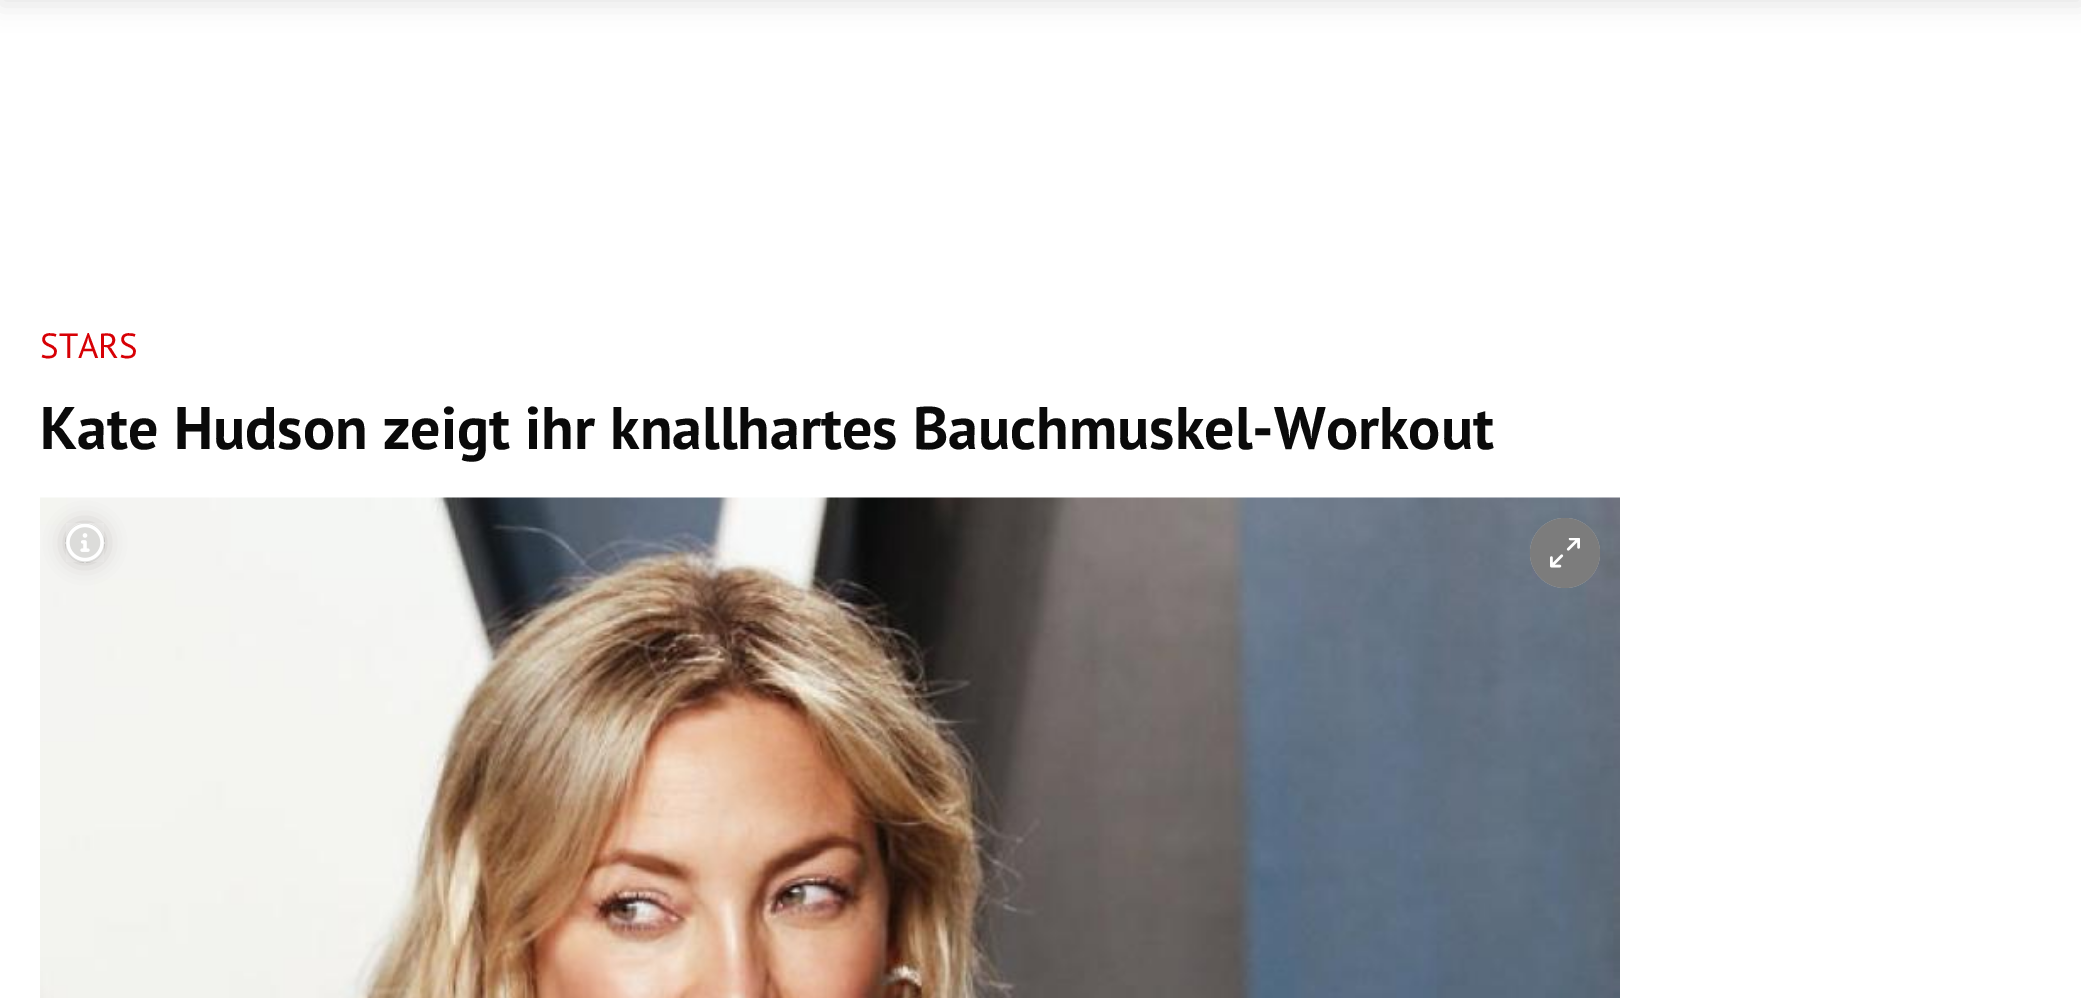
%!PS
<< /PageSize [2081 998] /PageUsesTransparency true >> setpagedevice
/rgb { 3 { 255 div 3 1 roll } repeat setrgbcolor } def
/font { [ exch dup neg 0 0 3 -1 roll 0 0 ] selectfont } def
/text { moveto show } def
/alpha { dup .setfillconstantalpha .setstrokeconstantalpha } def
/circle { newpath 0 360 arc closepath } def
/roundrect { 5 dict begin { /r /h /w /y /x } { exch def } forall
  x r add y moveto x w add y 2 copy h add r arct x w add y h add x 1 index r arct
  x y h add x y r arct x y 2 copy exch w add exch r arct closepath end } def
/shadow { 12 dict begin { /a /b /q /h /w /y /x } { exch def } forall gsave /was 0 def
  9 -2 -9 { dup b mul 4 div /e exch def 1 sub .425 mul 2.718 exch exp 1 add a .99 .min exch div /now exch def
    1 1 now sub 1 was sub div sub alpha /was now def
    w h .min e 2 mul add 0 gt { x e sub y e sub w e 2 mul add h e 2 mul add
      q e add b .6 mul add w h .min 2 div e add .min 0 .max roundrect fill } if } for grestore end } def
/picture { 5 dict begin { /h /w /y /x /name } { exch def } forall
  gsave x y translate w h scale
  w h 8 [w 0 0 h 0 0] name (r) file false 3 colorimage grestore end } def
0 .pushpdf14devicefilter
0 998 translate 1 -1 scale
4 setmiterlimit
255 255 255 rgb
0 0 2081 998 rectfill
0 0 0 rgb
0 -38 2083 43 0 12.5 0.1 shadow
(img_02.rgb) 40 497 1580 501 picture
gsave
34 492 moveto 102 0 rlineto 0 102 rlineto -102 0 rlineto closepath 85 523 moveto 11 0 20 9 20 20 rcurveto 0 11 -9 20 -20 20 rcurveto -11 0 -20 -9 -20 -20 rcurveto 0 -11 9 -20 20 -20 rcurveto closepath eoclip newpath
21 0 3 rgb
65 523 40 40 20 10 0.2 shadow
grestore
0.1 alpha
85 543 20 circle fill
1 alpha
(img_01.rgb) 66 523 38 39 picture
239 239 239 rgb
1565 553 35 circle fill
0.5 alpha
10 10 10 rgb
1565 553 35 circle fill
1 alpha
(img_03.rgb) 1550 538 30 30 picture
/PTSans-Regular 35 font
215 0 5 rgb
(STARS) 40 358 text
/PTSans-Bold 60 font
10 10 10 rgb
(Kate Hudson zeigt ihr knallhartes Bauchmuskel-Workout) 40 449 text
.poppdf14devicefilter showpage
